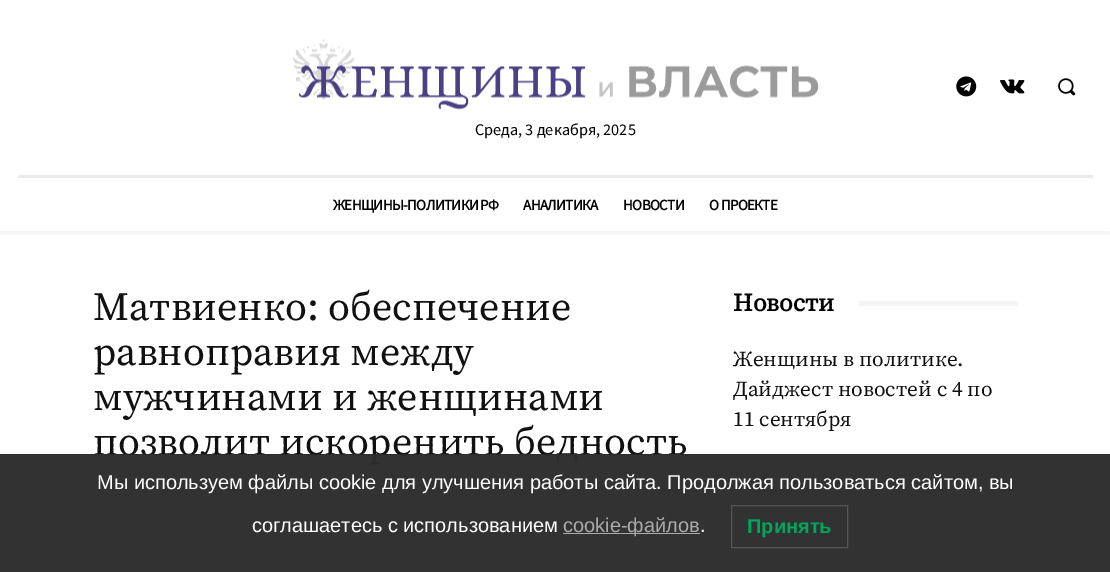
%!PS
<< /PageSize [1110 572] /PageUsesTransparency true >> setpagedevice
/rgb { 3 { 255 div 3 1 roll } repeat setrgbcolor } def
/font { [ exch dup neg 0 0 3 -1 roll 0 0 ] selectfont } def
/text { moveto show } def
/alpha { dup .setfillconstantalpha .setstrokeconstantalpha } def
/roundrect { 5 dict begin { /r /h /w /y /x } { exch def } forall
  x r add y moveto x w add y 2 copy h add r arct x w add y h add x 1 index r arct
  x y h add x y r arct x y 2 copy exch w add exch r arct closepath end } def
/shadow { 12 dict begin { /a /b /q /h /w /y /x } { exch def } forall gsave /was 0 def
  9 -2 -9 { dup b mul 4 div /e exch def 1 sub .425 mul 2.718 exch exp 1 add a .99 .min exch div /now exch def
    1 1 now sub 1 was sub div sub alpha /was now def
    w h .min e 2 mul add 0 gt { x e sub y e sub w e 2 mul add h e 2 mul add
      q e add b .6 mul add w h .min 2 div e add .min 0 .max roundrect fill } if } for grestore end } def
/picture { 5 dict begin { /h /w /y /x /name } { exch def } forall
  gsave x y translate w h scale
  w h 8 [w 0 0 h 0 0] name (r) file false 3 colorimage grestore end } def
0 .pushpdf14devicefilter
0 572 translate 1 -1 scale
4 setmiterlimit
255 255 255 rgb
0 0 1110 572 rectfill
(img_01.rgb) 956 76 21 21 picture
(img_02.rgb) 1000 79 25 15 picture
(img_03.rgb) 1058 78 18 18 picture
(img_04.rgb) 293 39 526 71 picture
234 234 234 rgb
18 175 1075 3 rectfill
gsave
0 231 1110 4 rectclip
0 0 0 rgb
0 140 1110 94 0 2.5 0.06 shadow
grestore
245 245 245 rgb
859 301 159 5 rectfill
242 242 242 rgb
1.2 setlinewidth
[3.75 2.5] 0 setdash
732.5 497 moveto 285 0 rlineto stroke
/SourceSansPro-Regular 16.25 font
0 0 0 rgb
(Среда, 3 декабря, 2025) 475 135 text
/SourceSansPro-Bold 15 font
333 210 moveto -0.6 0 (ЖЕНЩИНЫ-ПОЛИТИКИ РФ) ashow
523 210 moveto -0.6 0 (АНАЛИТИКА) ashow
623 210 moveto -0.6 0 (НОВОСТИ) ashow
709 210 moveto -0.6 0 (О ПРОЕКТЕ) ashow
/SourceSerifPro-Regular 40 font
17 17 17 rgb
(Матвиенко: обеспечение) 93 320 text
(равноправия между) 93 365 text
(мужчинами и женщинами) 93 410 text
(позволит искоренить бедность) 93 455 text
/SourceSerifPro-Bold 25 font
0 0 0 rgb
(Новости) 733 311 text
/SourceSerifPro-Regular 21.25 font
17 17 17 rgb
(Женщины в политике.) 733 366 text
(Дайджест новостей с 4 по) 733 396 text
(11 сентября) 733 426 text
0.97 alpha
43 43 43 rgb
0 455 1110 117 rectfill
1 alpha
0 454 1110 1 rectfill
/LiberationSans-Regular 20 font
255 255 255 rgb
(Мы используем файлы cookie для улучшения работы сайта. Продолжая пользоваться сайтом, вы) 97 489 text
(соглашаетесь с использованием) 252 532 text
(.) 700 532 text
170 170 170 rgb
563 533 137 1 rectfill
(cookie-файлов) 563 532 text
85 85 85 rgb
1 setlinewidth
[] 0 setdash
731.5 505.5 116 42 rectstroke
/LiberationSans-Bold 20 font
0 166 90 rgb
(Принять) 747 533 text
.poppdf14devicefilter showpage
